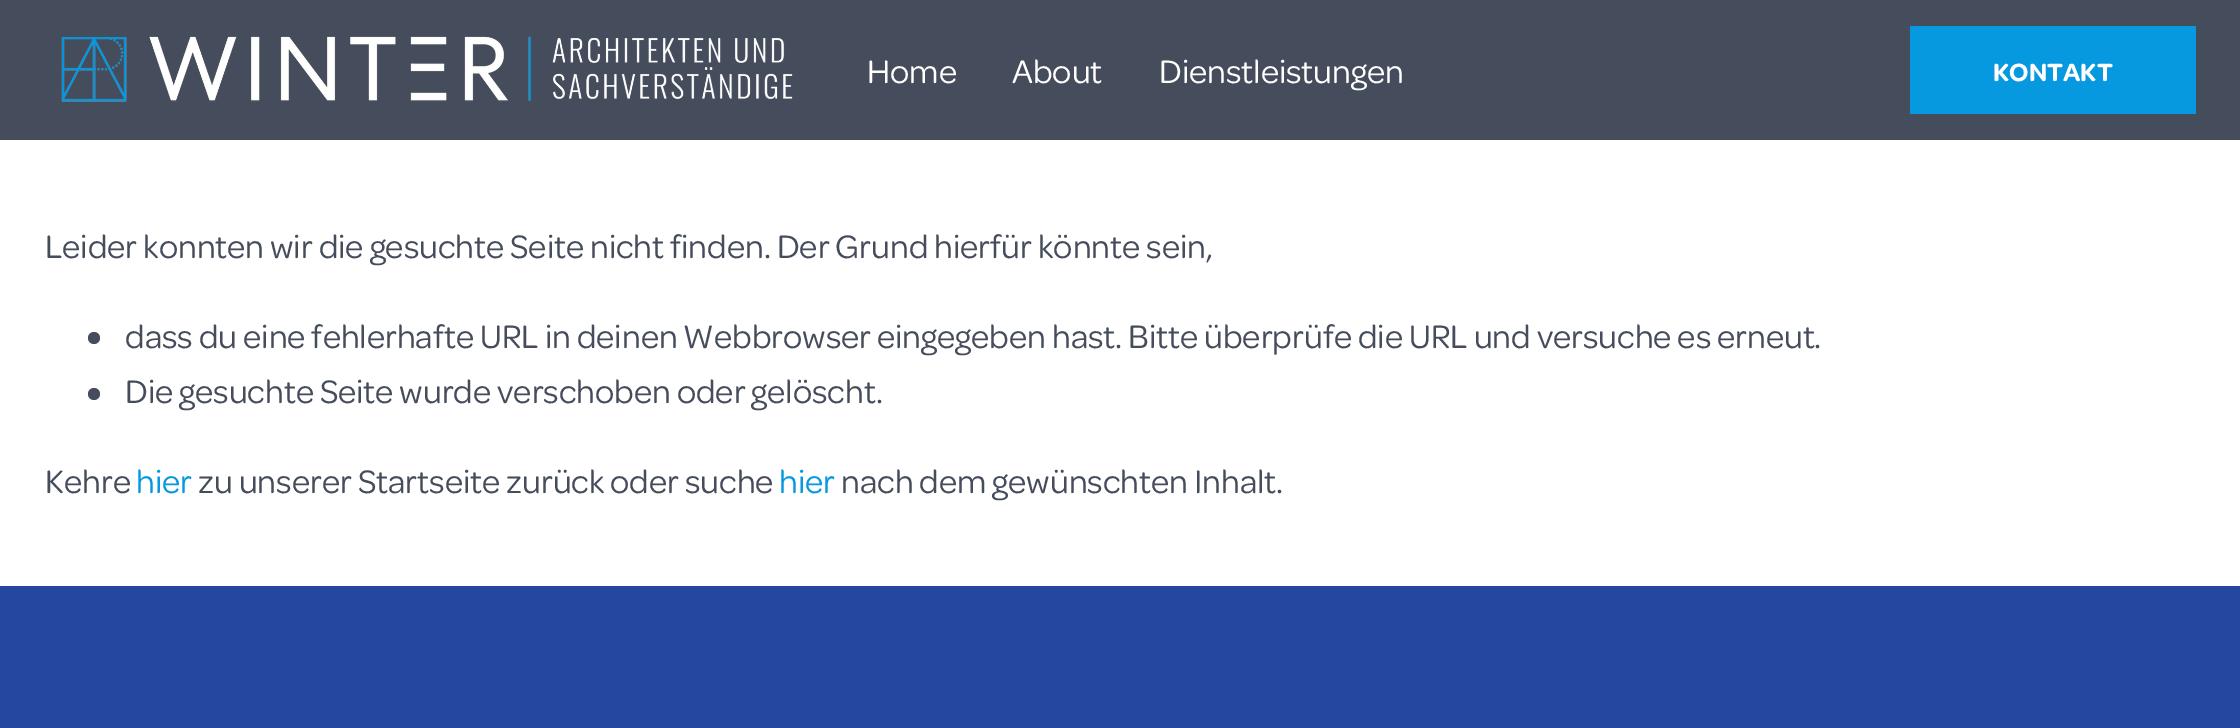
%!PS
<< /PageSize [2240 728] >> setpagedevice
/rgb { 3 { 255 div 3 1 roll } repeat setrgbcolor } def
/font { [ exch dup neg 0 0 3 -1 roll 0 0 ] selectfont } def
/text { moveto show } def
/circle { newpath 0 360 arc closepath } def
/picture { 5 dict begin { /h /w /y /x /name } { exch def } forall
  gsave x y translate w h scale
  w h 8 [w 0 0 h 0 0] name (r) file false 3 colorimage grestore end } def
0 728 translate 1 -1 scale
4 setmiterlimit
255 255 255 rgb
0 0 2240 728 rectfill
69 76 91 rgb
0 0 2240 140 rectfill
(img_01.rgb) 61 36 732 66 picture
7 153 223 rgb
1910 26 286 88 rectfill
69 76 91 rgb
94 338 6 circle fill
94 394 6 circle fill
37 71 160 rgb
0 586 2240 142 rectfill
/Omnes-Regular 34.7 font
255 255 255 rgb
(Home) 867 83 text
(About) 1012 83 text
(Dienstleistungen) 1159 83 text
/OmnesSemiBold-SemiBold 26.5 font
(KONTAKT) 1993 81 text
/Omnes-Regular 34.7 font
69 76 91 rgb
(Leider konnten wir die gesuchte Seite nicht finden. Der Grund hierfür könnte sein,) 45 258 text
(dass du eine fehlerhafte URL in deinen Webbrowser eingegeben hast. Bitte überprüfe die URL und versuche es erneut.) 125 348 text
(Die gesuchte Seite wurde verschoben oder gelöscht.) 125 403 text
(Kehre) 45 493 text
7 153 223 rgb
(hier) 136 493 text
69 76 91 rgb
(zu unserer Startseite zurück oder suche) 198 493 text
7 153 223 rgb
(hier) 779 493 text
69 76 91 rgb
(nach dem gewünschten Inhalt.) 841 493 text
showpage
